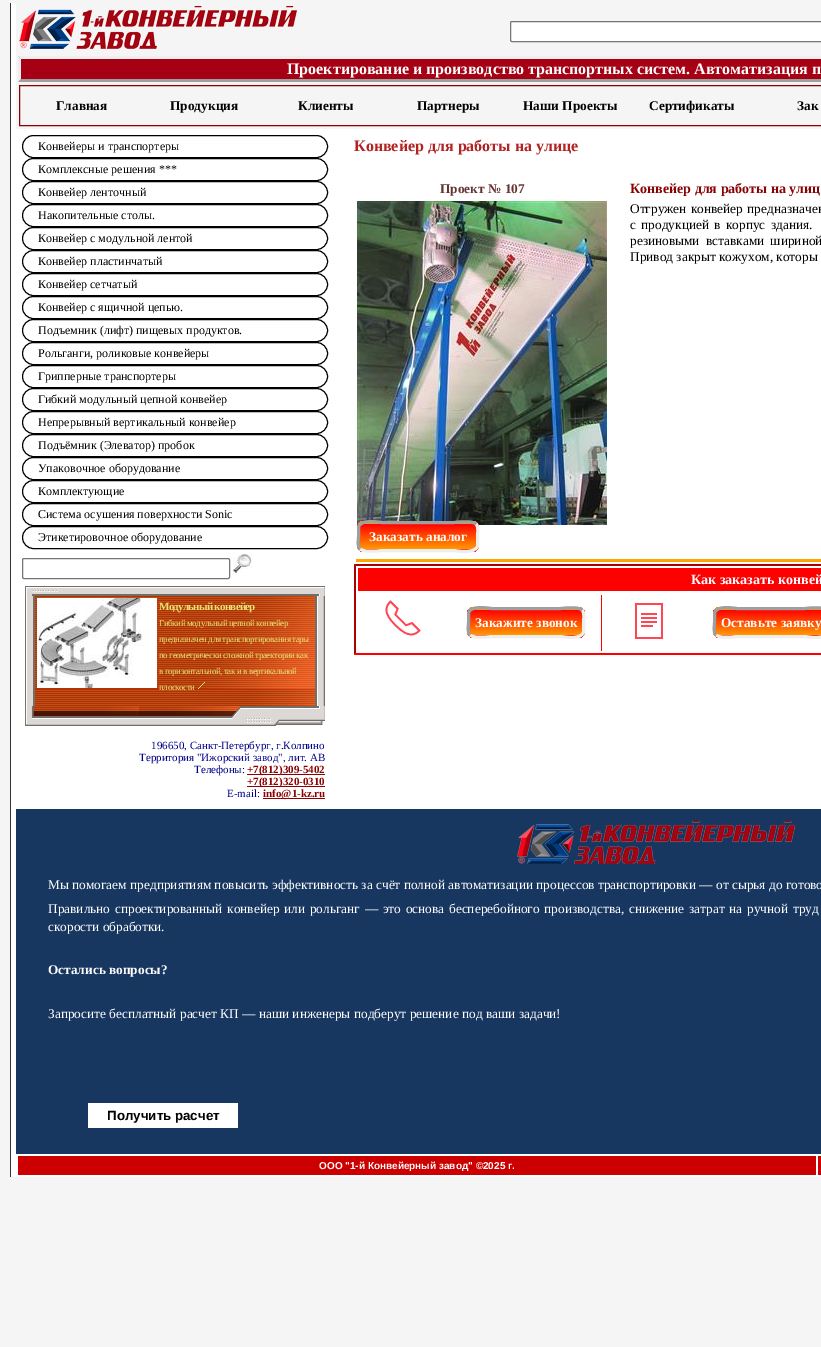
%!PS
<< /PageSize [821 1347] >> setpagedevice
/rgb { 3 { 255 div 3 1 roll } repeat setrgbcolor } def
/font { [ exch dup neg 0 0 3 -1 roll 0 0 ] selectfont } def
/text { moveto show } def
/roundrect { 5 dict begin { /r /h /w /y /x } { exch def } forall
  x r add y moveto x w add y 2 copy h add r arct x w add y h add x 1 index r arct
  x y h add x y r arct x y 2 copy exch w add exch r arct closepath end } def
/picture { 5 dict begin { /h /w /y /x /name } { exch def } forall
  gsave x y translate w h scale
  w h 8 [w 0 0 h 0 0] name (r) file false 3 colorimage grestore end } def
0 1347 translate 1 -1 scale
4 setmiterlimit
245 245 245 rgb
0 0 821 1347 rectfill
255 255 255 rgb
11 3 810 1174 rectfill
51 51 51 rgb
10 3 1 1174 rectfill
245 245 245 rgb
16 3 805 126 rectfill
(img_01.rgb) 19 6 278 43 picture
255 255 255 rgb
510.5 21.5 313 20 1.5 roundrect gsave fill grestore
118 118 118 rgb
stroke
165 0 20 rgb
18 56 803 26 rectfill
238 238 238 rgb
18 56 moveto 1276 0 rlineto -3 3 rlineto -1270 0 rlineto closepath fill
159 159 159 rgb
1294 82 moveto -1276 0 rlineto 3 -3 rlineto 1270 0 rlineto closepath fill
238 238 238 rgb
18 82 moveto 0 -26 rlineto 3 3 rlineto 0 20 rlineto closepath fill
139 0 0 rgb
19.5 85.5 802 40 rectstroke
0 0 0 rgb
22.5 135.5 305 22 11 roundrect stroke
22.5 158.5 305 22 11 roundrect stroke
22.5 181.5 305 22 11 roundrect stroke
22.5 204.5 305 22 11 roundrect stroke
22.5 227.5 305 22 11 roundrect stroke
22.5 250.5 305 22 11 roundrect stroke
22.5 273.5 305 22 11 roundrect stroke
22.5 296.5 305 22 11 roundrect stroke
22.5 319.5 305 22 11 roundrect stroke
22.5 342.5 305 22 11 roundrect stroke
22.5 365.5 305 22 11 roundrect stroke
22.5 388.5 305 22 11 roundrect stroke
22.5 411.5 305 22 11 roundrect stroke
22.5 434.5 305 22 11 roundrect stroke
22.5 457.5 305 22 11 roundrect stroke
22.5 480.5 305 22 11 roundrect stroke
22.5 503.5 305 22 11 roundrect stroke
22.5 526.5 305 22 11 roundrect stroke
118 118 118 rgb
22.5 558.5 207 20 1.5 roundrect stroke
(img_02.rgb) 233 553 19 20 picture
(img_03.rgb) 25 586 300 10 picture
(img_04.rgb) 25 596 10 110 picture
(img_05.rgb) 35 596 280 110 picture
(img_06.rgb) 37 598 120 90 picture
(img_07.rgb) 198 682 7 7 picture
(img_08.rgb) 315 596 10 110 picture
(img_09.rgb) 25 706 300 20 picture
139 0 0 rgb
247 774 78 1 rectfill
247 786 78 1 rectfill
263 798 62 1 rectfill
(img_10.rgb) 357 201 250 324 picture
gsave
357 521 122 31 7 roundrect clip newpath
gsave 357 521 moveto 122 0 rlineto 0 3 rlineto -122 0 rlineto closepath clip newpath
<< /ShadingType 2 /ColorSpace /DeviceRGB /Coords [418 499 418 524] /Extend [true true] /Function << /FunctionType 2 /Domain [0 1] /C0 [1 0 0] /C1 [1 0.6 0] /N 1 >> >> shfill grestore
gsave 357 524 moveto 122 0 rlineto 0 25 rlineto -122 0 rlineto closepath clip newpath
<< /ShadingType 2 /ColorSpace /DeviceRGB /Coords [418 524 418 549] /Extend [true true] /Function << /FunctionType 2 /Domain [0 1] /C0 [1 0 0] /C1 [1 0.6 0] /N 1 >> >> shfill grestore
gsave 357 549 moveto 122 0 rlineto 0 3 rlineto -122 0 rlineto closepath clip newpath
<< /ShadingType 2 /ColorSpace /DeviceRGB /Coords [418 549 418 574] /Extend [true true] /Function << /FunctionType 2 /Domain [0 1] /C0 [1 0 0] /C1 [1 0.6 0] /N 1 >> >> shfill grestore
grestore
238 238 238 rgb
3 setlinewidth
476 524 moveto 3 3 1.5 9 1.5 12.5 rcurveto 0 9.5 rlineto -2 8.5 -22.5 4.5 -23.5 4.5 rcurveto -72 0 rlineto -0.5 0 -17.5 2.5 -22 -1.5 rcurveto stroke
159 159 159 rgb
360 549 moveto -3 -3 -1.5 -9 -1.5 -12.5 rcurveto 0 -9.5 rlineto 2 -8.5 22.5 -4.5 23.5 -4.5 rcurveto 72 0 rlineto 0.5 0 17.5 -2.5 22 1.5 rcurveto stroke
255 165 0 rgb
356 559 465 3 rectfill
170 0 0 rgb
354 564 moveto 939 0 rlineto -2 2 rlineto -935 0 rlineto closepath fill
255 0 0 rgb
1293 655 moveto -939 0 rlineto 2 -2 rlineto 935 0 rlineto closepath fill
170 0 0 rgb
354 655 moveto 0 -91 rlineto 2 2 rlineto 0 87 rlineto closepath fill
255 0 0 rgb
358 568 463 23 rectfill
(img_11.rgb) 385 600 36 36 picture
601 595 1 56 rectfill
gsave
467 607 118 31 7 roundrect clip newpath
gsave 467 607 moveto 118 0 rlineto 0 3 rlineto -118 0 rlineto closepath clip newpath
<< /ShadingType 2 /ColorSpace /DeviceRGB /Coords [526 585 526 610] /Extend [true true] /Function << /FunctionType 2 /Domain [0 1] /C0 [1 0 0] /C1 [1 0.6 0] /N 1 >> >> shfill grestore
gsave 467 610 moveto 118 0 rlineto 0 25 rlineto -118 0 rlineto closepath clip newpath
<< /ShadingType 2 /ColorSpace /DeviceRGB /Coords [526 610 526 635] /Extend [true true] /Function << /FunctionType 2 /Domain [0 1] /C0 [1 0 0] /C1 [1 0.6 0] /N 1 >> >> shfill grestore
gsave 467 635 moveto 118 0 rlineto 0 3 rlineto -118 0 rlineto closepath clip newpath
<< /ShadingType 2 /ColorSpace /DeviceRGB /Coords [526 635 526 660] /Extend [true true] /Function << /FunctionType 2 /Domain [0 1] /C0 [1 0 0] /C1 [1 0.6 0] /N 1 >> >> shfill grestore
grestore
238 238 238 rgb
582 610 moveto 3 3 1.5 9 1.5 12.5 rcurveto 0 9.5 rlineto -2 8.5 -21.5 4.5 -23 4.5 rcurveto -69 0 rlineto -1.5 0 -17 2.5 -21.5 -1.5 rcurveto stroke
159 159 159 rgb
470 635 moveto -3 -3 -1.5 -9 -1.5 -12.5 rcurveto 0 -9.5 rlineto 2 -8.5 21.5 -4.5 23 -4.5 rcurveto 69 0 rlineto 1.5 0 17 -2.5 21.5 1.5 rcurveto stroke
(img_12.rgb) 635 603 28 36 picture
gsave
713 607 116 31 7 roundrect clip newpath
gsave 713 607 moveto 108 0 rlineto 0 3 rlineto -108 0 rlineto closepath clip newpath
<< /ShadingType 2 /ColorSpace /DeviceRGB /Coords [771 585 771 610] /Extend [true true] /Function << /FunctionType 2 /Domain [0 1] /C0 [1 0 0] /C1 [1 0.6 0] /N 1 >> >> shfill grestore
gsave 713 610 moveto 108 0 rlineto 0 25 rlineto -108 0 rlineto closepath clip newpath
<< /ShadingType 2 /ColorSpace /DeviceRGB /Coords [771 610 771 635] /Extend [true true] /Function << /FunctionType 2 /Domain [0 1] /C0 [1 0 0] /C1 [1 0.6 0] /N 1 >> >> shfill grestore
gsave 713 635 moveto 108 0 rlineto 0 3 rlineto -108 0 rlineto closepath clip newpath
<< /ShadingType 2 /ColorSpace /DeviceRGB /Coords [771 635 771 660] /Extend [true true] /Function << /FunctionType 2 /Domain [0 1] /C0 [1 0 0] /C1 [1 0.6 0] /N 1 >> >> shfill grestore
grestore
238 238 238 rgb
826 610 moveto 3 3 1.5 9 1.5 12.5 rcurveto 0 9.5 rlineto -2 8.5 -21 4.5 -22.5 4.5 rcurveto -68 0 rlineto -1.5 0 -16.5 2.5 -21 -1.5 rcurveto stroke
159 159 159 rgb
716 635 moveto -3 -3 -1.5 -9 -1.5 -12.5 rcurveto 0 -9.5 rlineto 2 -8.5 21 -4.5 22.5 -4.5 rcurveto 68 0 rlineto 1.5 0 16.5 -2.5 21 1.5 rcurveto stroke
23 54 96 rgb
16 809 805 345 rectfill
(img_13.rgb) 517 821 278 43 picture
255 255 255 rgb
88 1103 150 25 rectfill
204 0 0 rgb
18 1156 798 19 rectfill
818 1156 3 19 rectfill
/LiberationSerif-Bold 16 font
255 255 255 rgb
(Проектирование и производство транспортных систем. Автоматизация п) 287 74 text
/LiberationSerif-Bold 13.33 font
0 0 0 rgb
(Главная) 56 110 text
(Продукция) 170 110 text
(Клиенты) 298 110 text
(Партнеры) 417 110 text
(Наши Проекты) 523 110 text
(Сертификаты) 649 110 text
(Зак) 797 110 text
/LiberationSerif-Regular 12 font
(Конвейеры и транспортеры) 38 150 text
(Комплексные решения ***) 38 173 text
(Конвейер ленточный) 38 196 text
(Накопительные столы.) 38 219 text
(Конвейер с модульной лентой) 38 242 text
(Конвейер пластинчатый) 38 265 text
(Конвейер сетчатый) 38 288 text
(Конвейер с ящичной цепью.) 38 311 text
(Подъемник \(лифт\) пищевых продуктов.) 38 334 text
(Рольганги, роликовые конвейеры) 38 357 text
(Грипперные транспортеры) 38 380 text
(Гибкий модульный цепной конвейер) 38 403 text
(Непрерывный вертикальный конвейер) 38 426 text
(Подъёмник \(Элеватор\) пробок) 38 449 text
(Упаковочное оборудование) 38 472 text
(Комплектующие) 38 495 text
(Система осушения поверхности Sonic) 38 518 text
(Этикетировочное оборудование) 38 541 text
/LiberationSerif-Bold 11 font
230 229 115 rgb
159 610 moveto -0.75 0 (Модульный конвейер) ashow
/LiberationSerif-Regular 9 font
159 626 moveto -0.4 0 (Гибкий модульный цепной конвейер) ashow
159 642 moveto -0.4 0 (предназначен для транспортирования тары) ashow
159 658 moveto -0.4 0 (по геометрически сложной траектории как) ashow
159 674 moveto -0.4 0 (в горизонтальной, так и в вертикальной) ashow
159 690 moveto -0.4 0 (плоскости) ashow
/LiberationSerif-Regular 11 font
0 0 139 rgb
(196650, Санкт-Петербург, г.Колпино) 151 749 text
(Территория "Ижорский завод", лит. АВ) 139 761 text
(Телефоны:) 194 773 text
/LiberationSerif-Bold 11 font
139 0 0 rgb
(+7\(812\)309-5402) 247 773 text
(+7\(812\)320-0310) 247 785 text
/LiberationSerif-Regular 11 font
0 0 139 rgb
(E-mail:) 227 797 text
/LiberationSerif-Bold 11 font
139 0 0 rgb
(info@1-kz.ru) 263 797 text
/LiberationSerif-Bold 16 font
178 34 34 rgb
(Конвейер для работы на улице) 354 151 text
/LiberationSerif-Bold 13.33 font
102 51 51 rgb
(Проект № 107) 440 193 text
/LiberationSerif-Bold 14 font
139 0 0 rgb
(Конвейер для работы на улиц) 630 193 text
/LiberationSerif-Regular 13.33 font
0 0 0 rgb
630 213 moveto 1 0 32 (Отгружен конвейер предназначен) widthshow
630 229 moveto 2 0 32 (с продукцией в корпус здания.) widthshow
630 245 moveto 3 0 32 (резиновыми вставками шириной) widthshow
(Привод закрыт кожухом, которы) 630 261 text
/LiberationSerif-Bold 13.33 font
255 255 255 rgb
(Заказать аналог) 369 541 text
/LiberationSerif-Bold 14 font
(Как заказать конвей) 691 584 text
/LiberationSerif-Bold 13.33 font
(Закажите звонок) 475 627 text
(Оставьте заявку) 721 627 text
/LiberationSerif-Regular 13.33 font
(Мы помогаем предприятиям повысить эффективность за счёт полной автоматизации процессов транспортировки — от сырья до готово) 48 889 text
48 913 moveto 1.4 0 32 (Правильно спроектированный конвейер или рольганг — это основа бесперебойного производства, снижение затрат на ручной труд) widthshow
(скорости обработки.) 48 931 text
/LiberationSerif-Bold 13.33 font
(Остались вопросы?) 48 974 text
/LiberationSerif-Regular 13.33 font
(Запросите бесплатный расчет КП — наши инженеры подберут решение под ваши задачи!) 48 1018 text
/LiberationSans-Bold 13.33 font
0 0 0 rgb
(Получить расчет) 107 1120 text
/LiberationSans-Bold 10 font
255 255 255 rgb
(ООО "1-й Конвейерный завод" ©2025 г.) 319 1169 text
showpage
